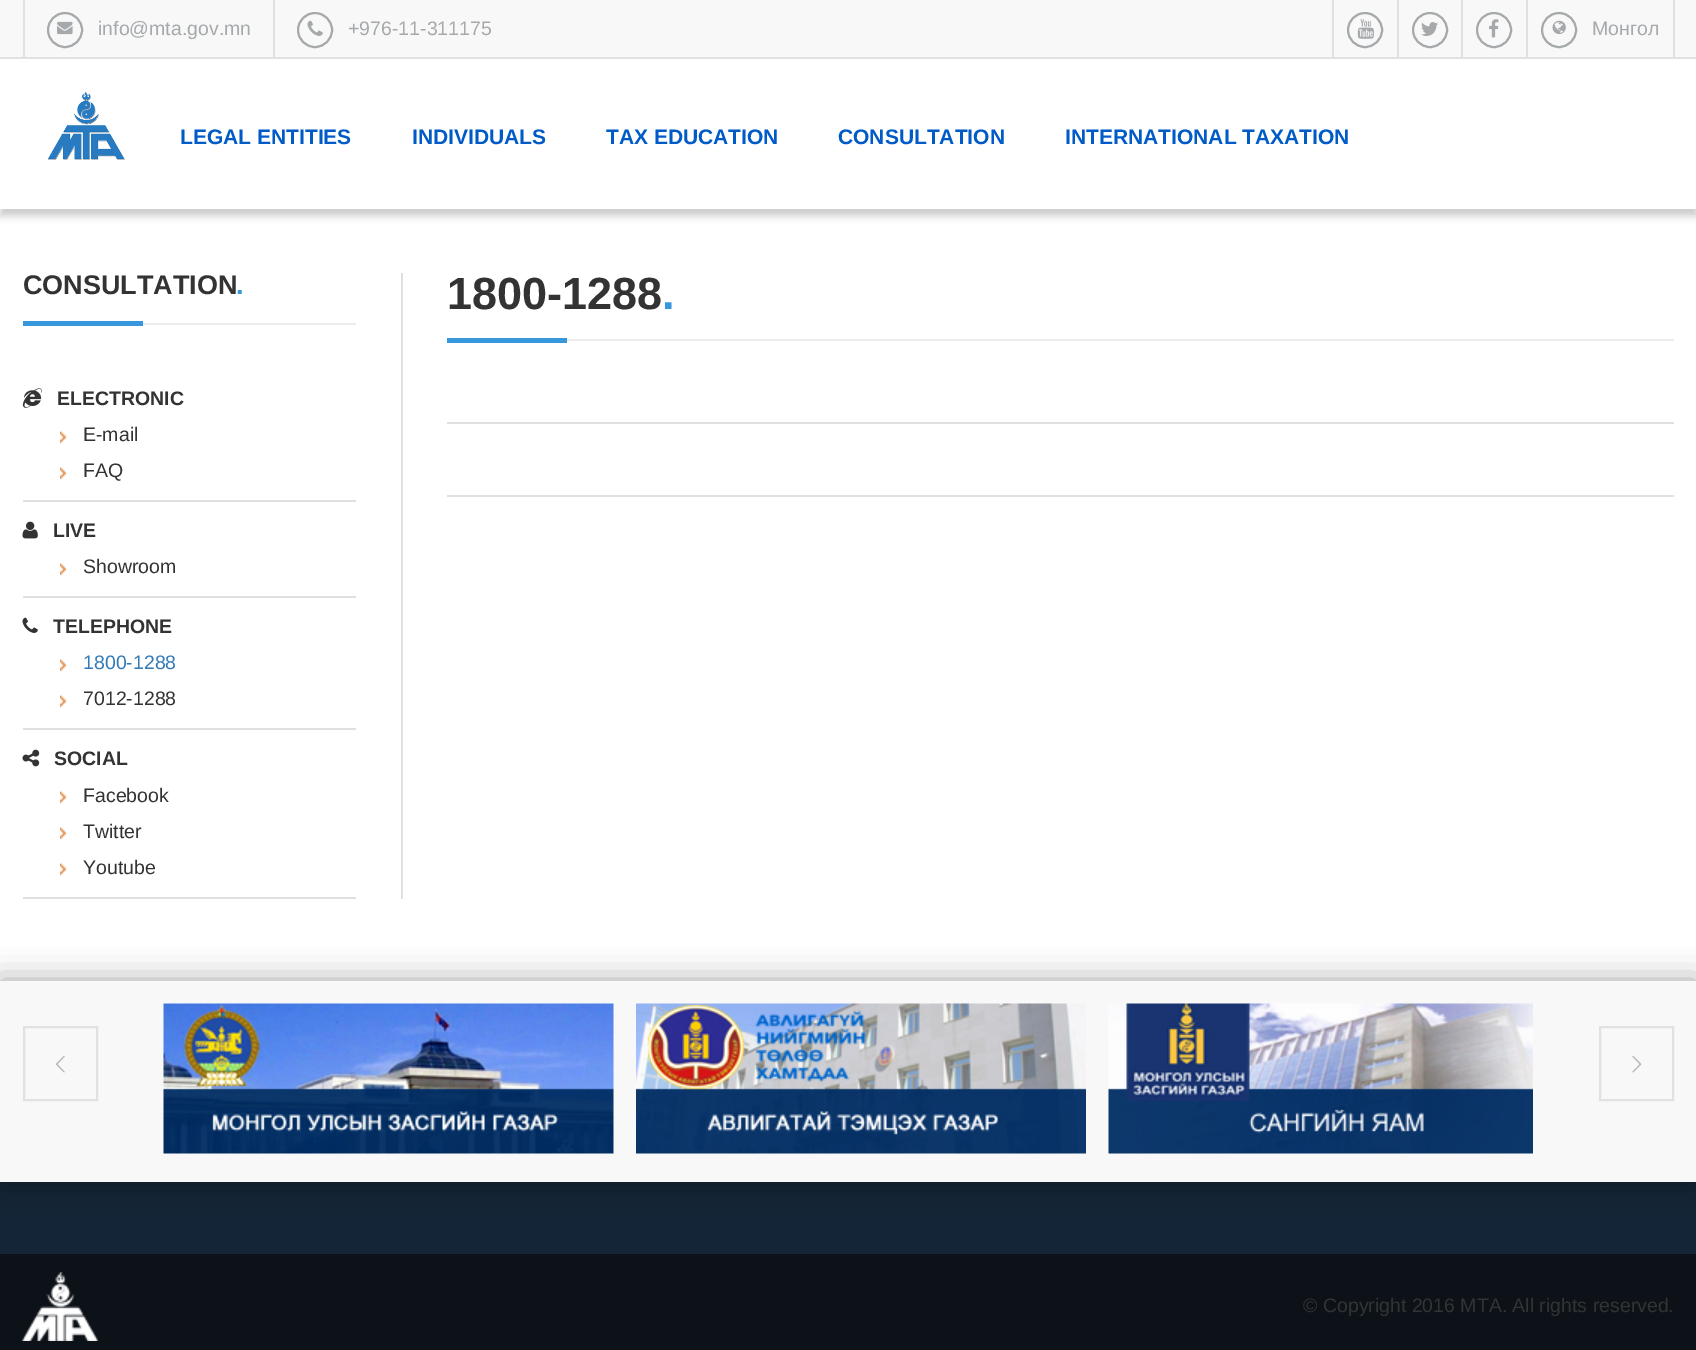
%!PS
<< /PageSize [1696 1350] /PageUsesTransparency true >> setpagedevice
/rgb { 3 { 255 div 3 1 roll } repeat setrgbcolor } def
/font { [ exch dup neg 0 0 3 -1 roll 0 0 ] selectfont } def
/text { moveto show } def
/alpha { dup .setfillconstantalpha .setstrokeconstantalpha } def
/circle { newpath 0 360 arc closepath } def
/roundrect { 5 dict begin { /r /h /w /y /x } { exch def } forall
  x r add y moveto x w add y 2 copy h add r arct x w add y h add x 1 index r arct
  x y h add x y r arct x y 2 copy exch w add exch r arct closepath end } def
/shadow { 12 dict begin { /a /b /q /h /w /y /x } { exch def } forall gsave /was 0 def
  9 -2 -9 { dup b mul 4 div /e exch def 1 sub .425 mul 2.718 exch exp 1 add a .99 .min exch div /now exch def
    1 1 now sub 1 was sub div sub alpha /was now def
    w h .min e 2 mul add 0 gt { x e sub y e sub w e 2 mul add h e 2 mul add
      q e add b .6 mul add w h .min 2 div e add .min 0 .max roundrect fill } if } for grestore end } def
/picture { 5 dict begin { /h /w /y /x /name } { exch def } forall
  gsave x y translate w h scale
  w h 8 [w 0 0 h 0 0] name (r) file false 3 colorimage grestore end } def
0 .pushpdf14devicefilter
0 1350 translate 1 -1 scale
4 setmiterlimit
255 255 255 rgb
0 0 1696 1350 rectfill
0 0 0 rgb
0 8 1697 208 0 4 0.2 shadow
255 255 255 rgb
0 59 1696 150 rectfill
248 248 248 rgb
0 0 1696 57 rectfill
225 225 225 rgb
0 57 1696 2 rectfill
23 0 2 57 rectfill
165 169 171 rgb
2 setlinewidth
65 30 17 circle stroke
(img_01.rgb) 57 21 16 14 picture
225 225 225 rgb
273 0 2 57 rectfill
165 169 171 rgb
315 30 17 circle stroke
(img_02.rgb) 307 20 16 16 picture
225 225 225 rgb
1332 0 2 57 rectfill
165 169 171 rgb
1365 30 17 circle stroke
(img_03.rgb) 1357 19 17 20 picture
225 225 225 rgb
1397 0 2 57 rectfill
165 169 171 rgb
1430 30 17 circle stroke
(img_04.rgb) 1421 22 17 14 picture
225 225 225 rgb
1461 0 2 57 rectfill
165 169 171 rgb
1494 30 17 circle stroke
(img_05.rgb) 1489 19 10 19 picture
225 225 225 rgb
1673 0 2 57 rectfill
1526 0 2 57 rectfill
165 169 171 rgb
1559 30 17 circle stroke
(img_06.rgb) 1552 20 14 15 picture
(img_07.rgb) 48 92 77 68 picture
224 224 224 rgb
401 273 2 626 rectfill
235 235 235 rgb
143 323 213 2 rectfill
55 151 221 rgb
23 321 120 5 rectfill
224 224 224 rgb
23 500 333 2 rectfill
(img_08.rgb) 22 388 20 20 picture
(img_09.rgb) 60 430 6 16 picture
(img_10.rgb) 60 466 6 16 picture
23 596 333 2 rectfill
(img_11.rgb) 22 521 16 18 picture
(img_09.rgb) 60 562 6 16 picture
23 728 333 2 rectfill
(img_12.rgb) 22 617 16 16 picture
(img_13.rgb) 60 658 6 16 picture
(img_14.rgb) 60 694 6 16 picture
23 897 333 2 rectfill
(img_15.rgb) 22 749 18 18 picture
(img_16.rgb) 60 790 6 16 picture
(img_14.rgb) 60 826 6 16 picture
(img_17.rgb) 60 862 6 16 picture
235 235 235 rgb
567 339 1107 2 rectfill
55 151 221 rgb
447 338 120 5 rectfill
224 224 224 rgb
447 422 1227 2 rectfill
447 495 1227 2 rectfill
20 37 55 rgb
0 1182 1696 72 rectfill
0 0 0 rgb
0 981 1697 201 0 15 0.35 shadow
248 248 248 rgb
0 981 1696 201 rectfill
225 225 225 rgb
24 1027 73 73 rectstroke
(img_18.rgb) 55 1055 10 18 picture
(img_19.rgb) 163 1003 451 151 picture
(img_20.rgb) 636 1003 450 151 picture
(img_21.rgb) 1108 1003 425 151 picture
1600 1027 73 73 rectstroke
(img_22.rgb) 1632 1055 10 18 picture
12 18 24 rgb
0 1254 1696 96 rectfill
(img_23.rgb) 22 1272 76 69 picture
/LiberationSans-Regular 19.5 font
165 169 171 rgb
(info@mta.gov.mn) 98 35 text
(+976-11-311175) 348 35 text
(Монгол) 1592 35 text
/LiberationSans-Bold 21 font
0 91 199 rgb
(LEGAL ENTITIES) 180 144 text
(INDIVIDUALS) 412 144 text
(TAX EDUCATION) 606 144 text
(CONSULTATION) 838 144 text
(INTERNATIONAL TAXATION) 1065 144 text
/LiberationSans-Bold 27 font
51 51 51 rgb
(CONSULTATION) 23 294 text
55 151 221 rgb
(.) 236 294 text
/LiberationSans-Bold 19.5 font
51 51 51 rgb
(ELECTRONIC) 57 405 text
/LiberationSans-Regular 19.5 font
(E-mail) 83 441 text
(FAQ) 83 477 text
/LiberationSans-Bold 19.5 font
(LIVE) 53 537 text
/LiberationSans-Regular 19.5 font
(Showroom) 83 573 text
/LiberationSans-Bold 19.5 font
(TELEPHONE) 53 633 text
/LiberationSans-Regular 19.5 font
51 122 183 rgb
(1800-1288) 83 669 text
51 51 51 rgb
(7012-1288) 83 705 text
/LiberationSans-Bold 19.5 font
(SOCIAL) 54 765 text
/LiberationSans-Regular 19.5 font
(Facebook) 83 802 text
(Twitter) 83 838 text
(Youtube) 83 874 text
/LiberationSans-Bold 45 font
(1800-1288) 447 309 text
55 151 221 rgb
(.) 662 309 text
/LiberationSans-Regular 19.5 font
51 51 51 rgb
(© Copyright 2016 MTA. All rights reserved.) 1303 1312 text
.poppdf14devicefilter showpage
